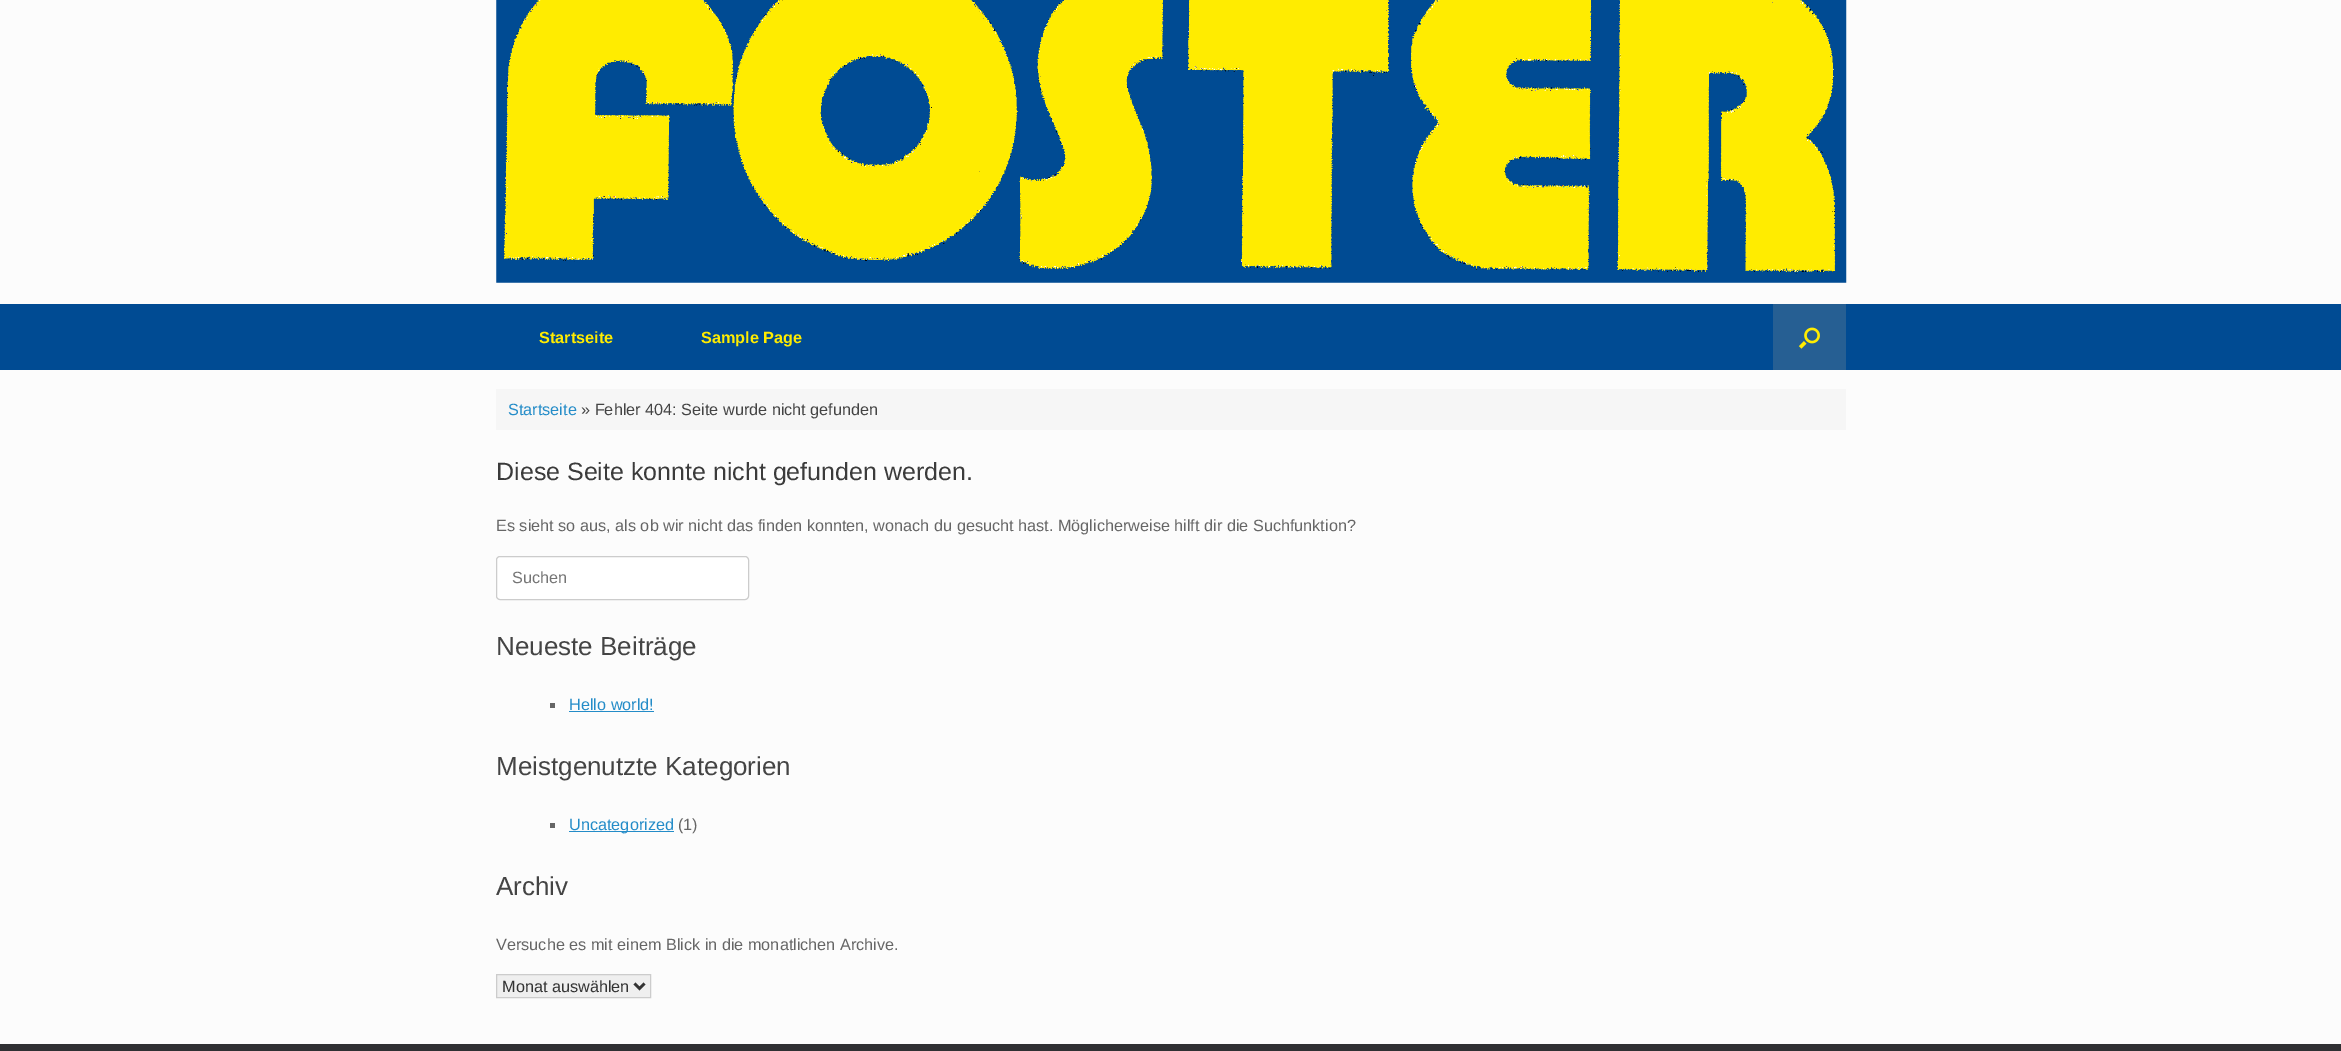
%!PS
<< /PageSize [2341 1051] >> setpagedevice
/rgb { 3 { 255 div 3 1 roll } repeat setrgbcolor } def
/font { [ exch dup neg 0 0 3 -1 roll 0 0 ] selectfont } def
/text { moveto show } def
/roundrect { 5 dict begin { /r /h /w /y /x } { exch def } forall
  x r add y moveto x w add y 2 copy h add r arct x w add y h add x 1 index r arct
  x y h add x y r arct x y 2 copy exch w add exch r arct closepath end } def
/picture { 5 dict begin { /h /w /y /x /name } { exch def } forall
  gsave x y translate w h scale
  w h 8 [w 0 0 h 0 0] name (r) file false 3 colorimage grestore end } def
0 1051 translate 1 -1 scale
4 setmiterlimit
47 48 51 rgb
0 0 2341 1051 rectfill
252 252 252 rgb
0 0 2341 304 rectfill
(img_01.rgb) 496 0 1351 283 picture
0 75 147 rgb
0 304 2341 66 rectfill
38 95 147 rgb
1773 304 73 66 rectfill
(img_02.rgb) 1798 327 22 22 picture
252 252 252 rgb
0 370 2341 674 rectfill
246 246 246 rgb
496 389 1350 41 rectfill
255 255 255 rgb
496.5 556.5 252 43 3.5 roundrect gsave fill grestore
204 204 204 rgb
stroke
102 102 102 rgb
550 703 5 5 rectfill
36 140 200 rgb
569 711 85 1 rectfill
102 102 102 rgb
550 823 5 5 rectfill
36 140 200 rgb
569 831 105 1 rectfill
239 239 239 rgb
496.5 974.5 moveto 154 0 rlineto 0 23 rlineto -154 0 rlineto closepath gsave fill grestore
204 204 204 rgb
stroke
51 51 51 rgb
2.5 setlinewidth
634.5 983.5 moveto 5 5 rlineto 5 -5 rlineto stroke
/LiberationSans-Bold 16.25 font
255 236 0 rgb
(Startseite) 539 343 text
(Sample Page) 701 343 text
/LiberationSans-Regular 16.25 font
36 140 200 rgb
(Startseite) 508 415 text
68 68 68 rgb
(» Fehler 404: Seite wurde nicht gefunden) 581 415 text
/LiberationSans-Regular 25 font
59 59 59 rgb
(Diese Seite konnte nicht gefunden werden.) 496 480 text
/LiberationSans-Regular 16.25 font
102 102 102 rgb
(Es sieht so aus, als ob wir nicht das finden konnten, wonach du gesucht hast. Möglicherweise hilft dir die Suchfunktion?) 496 531 text
117 117 117 rgb
(Suchen) 512 583 text
/LiberationSans-Regular 26 font
68 68 68 rgb
(Neueste Beiträge) 496 655 text
/LiberationSans-Regular 16.25 font
36 140 200 rgb
(Hello world!) 569 710 text
/LiberationSans-Regular 26 font
68 68 68 rgb
(Meistgenutzte Kategorien) 496 775 text
/LiberationSans-Regular 16.25 font
36 140 200 rgb
(Uncategorized) 569 830 text
102 102 102 rgb
(\(1\)) 678 830 text
/LiberationSans-Regular 26 font
68 68 68 rgb
(Archiv) 496 895 text
/LiberationSans-Regular 16.25 font
102 102 102 rgb
(Versuche es mit einem Blick in die monatlichen Archive.) 496 950 text
51 51 51 rgb
(Monat auswählen) 502 992 text
showpage
